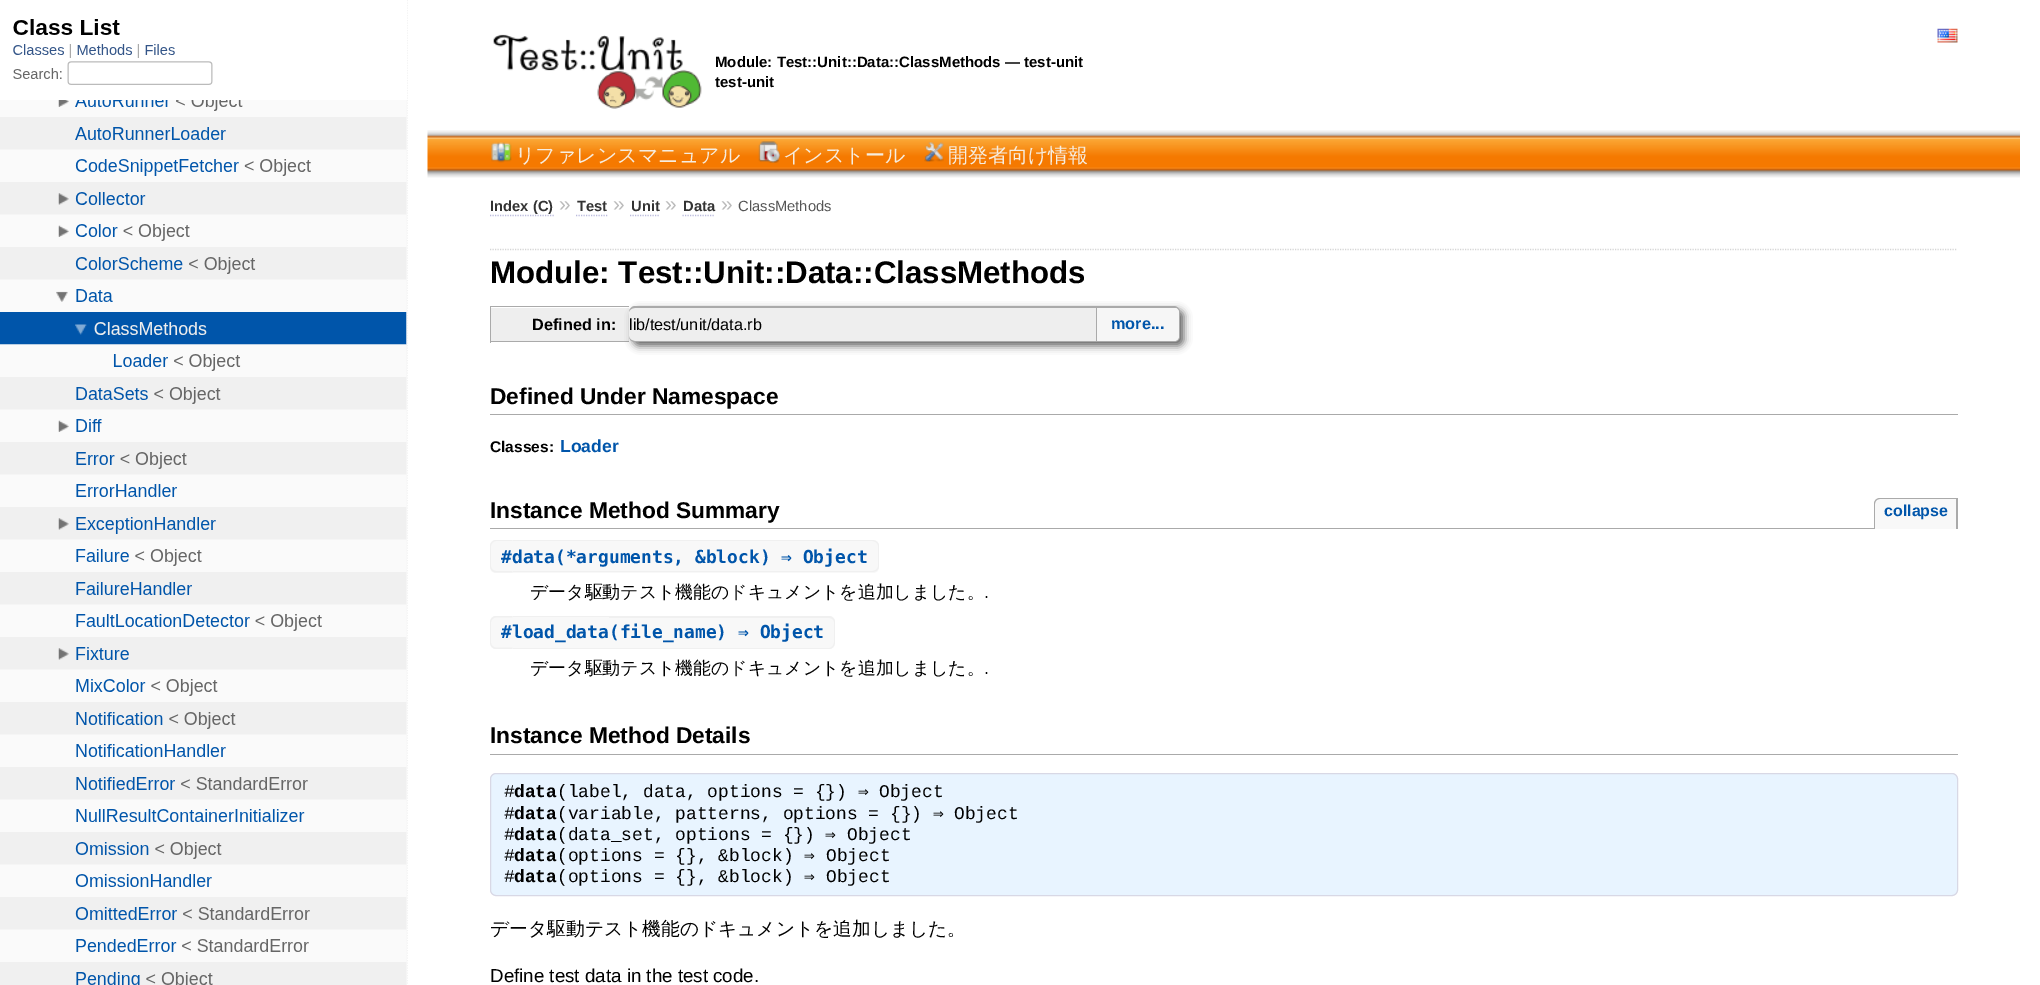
%!PS
<< /PageSize [2040 985] /PageUsesTransparency true >> setpagedevice
/rgb { 3 { 255 div 3 1 roll } repeat setrgbcolor } def
/font { [ exch dup neg 0 0 3 -1 roll 0 0 ] selectfont } def
/text { moveto show } def
/alpha { dup .setfillconstantalpha .setstrokeconstantalpha } def
/roundrect { 5 dict begin { /r /h /w /y /x } { exch def } forall
  x r add y moveto x w add y 2 copy h add r arct x w add y h add x 1 index r arct
  x y h add x y r arct x y 2 copy exch w add exch r arct closepath end } def
/shadow { 12 dict begin { /a /b /q /h /w /y /x } { exch def } forall gsave /was 0 def
  9 -2 -9 { dup b mul 4 div /e exch def 1 sub .425 mul 2.718 exch exp 1 add a .99 .min exch div /now exch def
    1 1 now sub 1 was sub div sub alpha /was now def
    w h .min e 2 mul add 0 gt { x e sub y e sub w e 2 mul add h e 2 mul add
      q e add b .6 mul add w h .min 2 div e add .min 0 .max roundrect fill } if } for grestore end } def
/picture { 5 dict begin { /h /w /y /x /name } { exch def } forall
  gsave x y translate w h scale
  w h 8 [w 0 0 h 0 0] name (r) file false 3 colorimage grestore end } def
0 .pushpdf14devicefilter
0 985 translate 1 -1 scale
4 setmiterlimit
255 255 255 rgb
0 0 2040 985 rectfill
238 238 238 rgb
1.2 setlinewidth
[1.25 1.25] 0 setdash
407 0 moveto 0 985 rlineto stroke
(img_01.rgb) 0 0 407 985 picture
(img_02.rgb) 1937 28 21 15 picture
(img_03.rgb) 493 34 209 75 picture
(img_04.rgb) 427 130 1593 48 picture
(img_05.rgb) 491 142 21 21 picture
(img_06.rgb) 758 141 22 22 picture
(img_07.rgb) 924 142 20 20 picture
187 187 221 rgb
490 215.5 moveto 64 0 rlineto stroke
576 215.5 moveto 31.5 0 rlineto stroke
630 215.5 moveto 29 0 rlineto stroke
682.5 215.5 moveto 32.5 0 rlineto stroke
213 213 213 rgb
490 249.5 moveto 1467.5 0 rlineto stroke
238 238 238 rgb
491 308 138 33 rectfill
170 170 170 rgb
490 306 139 1 rectfill
490 341 139 1 rectfill
490 306 1 37 rectfill
100 100 100 rgb
633 310 551 36 6 4 1 shadow
238 238 238 rgb
635 308 moveto 539 0 rlineto 3 0 5 2 5 4 rcurveto 0 24 rlineto 0 3 -2 5 -5 5 rcurveto -539 0 rlineto -3 0 -6 -2 -6 -5 rcurveto 0 -24 rlineto 0 -2 3 -4 6 -4 rcurveto closepath fill
170 170 170 rgb
635 306 moveto 539 0 rlineto 3 0 6 3 6 6 rcurveto 0 24 rlineto 0 4 -3 6 -6 6 rcurveto -539 0 rlineto -3 0 -6 -2 -6 -6 rcurveto 0 -24 rlineto 0 -3 3 -6 6 -6 rcurveto closepath 635 308 moveto 539 0 rlineto 3 0 5 2 5 4 rcurveto 0 24 rlineto 0 3 -2 5 -5 5 rcurveto -539 0 rlineto -3 0 -6 -2 -6 -5 rcurveto 0 -24 rlineto 0 -2 3 -4 6 -4 rcurveto closepath eofill
246 246 246 rgb
1096 308 moveto 80 0 rlineto 2 1 3 3 3 4 rcurveto 0 24 rlineto 0 3 -2 5 -5 5 rcurveto -78 0 rlineto closepath fill
170 170 170 rgb
1096 308 1 33 rectfill
490 414 1468 1 rectfill
490 528 1384 1 rectfill
248 248 248 rgb
1880 498 moveto 78 0 rlineto 0 31 rlineto -84 0 rlineto 0 -25 rlineto 0 -3.5 2.5 -6 6 -6 rcurveto closepath fill
170 170 170 rgb
1880 498 moveto 78 0 rlineto 0 31 rlineto -84 0 rlineto 0 -25 rlineto 0 -4 3 -6 6 -6 rcurveto closepath 1880 499 moveto 76 0 rlineto 0 30 rlineto -81 0 rlineto 0 -25 rlineto 0 -3 2 -5 5 -5 rcurveto closepath eofill
248 248 248 rgb
496 540 moveto 17 0 rlineto 0 33 rlineto -17 0 rlineto -3.5 0 -6 -2.5 -6 -6 rcurveto 0 -21 rlineto 0 -3.5 2.5 -6 6 -6 rcurveto closepath fill
240 240 240 rgb
496 540 moveto 16.5 0 rlineto 0 32.5 rlineto -16.5 0 rlineto -3 0 -6 -3 -6 -6.5 rcurveto 0 -20 rlineto 0 -3 3 -6 6 -6 rcurveto closepath 496 541 moveto 16.5 0 rlineto 0 30 rlineto -16.5 0 rlineto -2.5 0 -5 -2 -5 -5 rcurveto 0 -20 rlineto 0 -2.5 2.5 -5 5 -5 rcurveto closepath eofill
248 248 248 rgb
513 541 42 32 rectfill
240 240 240 rgb
513 540 42 1 rectfill
513 571 42 1 rectfill
248 248 248 rgb
555 540 moveto 318 0 rlineto 3.5 0 6 2.5 6 6 rcurveto 0 21 rlineto 0 3.5 -2.5 6 -6 6 rcurveto -318 0 rlineto closepath fill
240 240 240 rgb
555 540 moveto 317 0 rlineto 4 0 7 3 7 6 rcurveto 0 20 rlineto 0 4 -3 6 -7 6 rcurveto -317 0 rlineto closepath 555 541 moveto 317 0 rlineto 3 0 6 2 6 5 rcurveto 0 20 rlineto 0 3 -3 5 -6 5 rcurveto -317 0 rlineto closepath eofill
248 248 248 rgb
496 616 moveto 17 0 rlineto 0 33 rlineto -17 0 rlineto -3.5 0 -6 -2.5 -6 -6 rcurveto 0 -21 rlineto 0 -3.5 2.5 -6 6 -6 rcurveto closepath fill
240 240 240 rgb
496 616 moveto 16.5 0 rlineto 0 33 rlineto -16.5 0 rlineto -3 0 -6 -3 -6 -6.5 rcurveto 0 -20 rlineto 0 -3.5 3 -6.5 6 -6.5 rcurveto closepath 496 617.5 moveto 16.5 0 rlineto 0 30 rlineto -16.5 0 rlineto -2.5 0 -5 -2 -5 -5 rcurveto 0 -20 rlineto 0 -3 2.5 -5 5 -5 rcurveto closepath eofill
248 248 248 rgb
513 617 96 31 rectfill
240 240 240 rgb
513 616 96 1 rectfill
513 648 96 1 rectfill
248 248 248 rgb
609 616 moveto 220 0 rlineto 3.5 0 6 2.5 6 6 rcurveto 0 21 rlineto 0 3.5 -2.5 6 -6 6 rcurveto -220 0 rlineto closepath fill
240 240 240 rgb
609 616 moveto 220 0 rlineto 3 0 6 3 6 6 rcurveto 0 20 rlineto 0 4 -3 7 -6 7 rcurveto -220 0 rlineto closepath 609 618 moveto 220 0 rlineto 3 0 5 2 5 4 rcurveto 0 20 rlineto 0 3 -2 6 -5 6 rcurveto -220 0 rlineto closepath eofill
170 170 170 rgb
490 754 1468 1 rectfill
232 244 255 rgb
490.5 773.5 1467 122 5.5 roundrect gsave fill grestore
216 216 229 rgb
1 setlinewidth
[] 0 setdash
stroke
/LiberationSans-Bold 15 font
0 0 0 rgb
(Module: Test::Unit::Data::ClassMethods — test-unit) 715 67 text
(test-unit) 715 87 text
/WenQuanYiZenHei-Medium 20 font
246 237 224 rgb
(リファレンスマニュアル) 515 162 text
(インストール) 783 162 text
(開発者向け情報) 948 162 text
/LiberationSans-Bold 14.75 font
51 51 51 rgb
(Index \(C\)) 490 211 text
/LiberationSans-Regular 21 font
187 187 187 rgb
(») 559 211 text
/LiberationSans-Bold 14.75 font
51 51 51 rgb
(Test) 577 211 text
/LiberationSans-Regular 21 font
187 187 187 rgb
(») 613 211 text
/LiberationSans-Bold 14.75 font
51 51 51 rgb
(Unit) 631 211 text
/LiberationSans-Regular 21 font
187 187 187 rgb
(») 665 211 text
/LiberationSans-Bold 14.75 font
51 51 51 rgb
(Data) 683 211 text
/LiberationSans-Regular 21 font
187 187 187 rgb
(») 721 211 text
/LiberationSans-Regular 14.75 font
85 85 85 rgb
(ClassMethods) 738 211 text
/LiberationSans-Bold 31.25 font
0 0 0 rgb
(Module: Test::Unit::Data::ClassMethods) 490 283 text
/LiberationSans-Bold 16.25 font
(Defined in:) 532 330 text
/LiberationSans-Regular 16.25 font
(lib/test/unit/data.rb) 629 330 text
/LiberationSans-Bold 16.25 font
0 85 170 rgb
(more...) 1111 329 text
/LiberationSans-Bold 22.75 font
0 0 0 rgb
(Defined Under Namespace) 490 404 text
/LiberationSans-Bold 15.5 font
(Classes:) 490 452 text
/LiberationSans-Bold 17.5 font
0 85 170 rgb
(Loader) 560 452 text
/LiberationSans-Bold 22.75 font
0 0 0 rgb
(Instance Method Summary) 490 518 text
/LiberationSans-Bold 16 font
0 85 170 rgb
(collapse) 1884 516 text
/DejaVuSansMono-Bold 17.9 font
(#data\(*arguments, &block\) ⇒ Object) 501 563 text
/WenQuanYiZenHei-Medium 17.9 font
0 0 0 rgb
(データ駆動テスト機能のドキュメントを追加しました。) 530 598 text
/LiberationSans-Regular 17.9 font
(.) 984 598 text
/DejaVuSansMono-Bold 17.9 font
0 85 170 rgb
(#load_data\(file_name\) ⇒ Object) 501 638 text
/WenQuanYiZenHei-Medium 17.9 font
0 0 0 rgb
(データ駆動テスト機能のドキュメントを追加しました。) 530 674 text
/LiberationSans-Regular 17.9 font
(.) 984 674 text
/LiberationSans-Bold 22.75 font
(Instance Method Details) 490 743 text
/LiberationMono-Regular 17.9 font
(#) 504 797 text
/LiberationMono-Bold 17.9 font
(data) 514 797 text
/LiberationMono-Regular 17.9 font
(\(label, data, options = {}\)) 557 797 text
/DejaVuSansMono-Regular 17.9 font
(⇒) 858 797 text
/LiberationMono-Regular 17.9 font
(Object) 879 797 text
(#) 504 819 text
/LiberationMono-Bold 17.9 font
(data) 514 819 text
/LiberationMono-Regular 17.9 font
(\(variable, patterns, options = {}\)) 557 819 text
/DejaVuSansMono-Regular 17.9 font
(⇒) 933 819 text
/LiberationMono-Regular 17.9 font
(Object) 954 819 text
(#) 504 840 text
/LiberationMono-Bold 17.9 font
(data) 514 840 text
/LiberationMono-Regular 17.9 font
(\(data_set, options = {}\)) 557 840 text
/DejaVuSansMono-Regular 17.9 font
(⇒) 825 840 text
/LiberationMono-Regular 17.9 font
(Object) 847 840 text
(#) 504 861 text
/LiberationMono-Bold 17.9 font
(data) 514 861 text
/LiberationMono-Regular 17.9 font
(\(options = {}, &block\)) 557 861 text
/DejaVuSansMono-Regular 17.9 font
(⇒) 804 861 text
/LiberationMono-Regular 17.9 font
(Object) 826 861 text
(#) 504 882 text
/LiberationMono-Bold 17.9 font
(data) 514 882 text
/LiberationMono-Regular 17.9 font
(\(options = {}, &block\)) 557 882 text
/DejaVuSansMono-Regular 17.9 font
(⇒) 804 882 text
/LiberationMono-Regular 17.9 font
(Object) 826 882 text
/WenQuanYiZenHei-Medium 18.75 font
(データ駆動テスト機能のドキュメントを追加しました。) 490 935 text
/LiberationSans-Regular 18.75 font
(Define test data in the test code.) 490 982 text
.poppdf14devicefilter showpage
